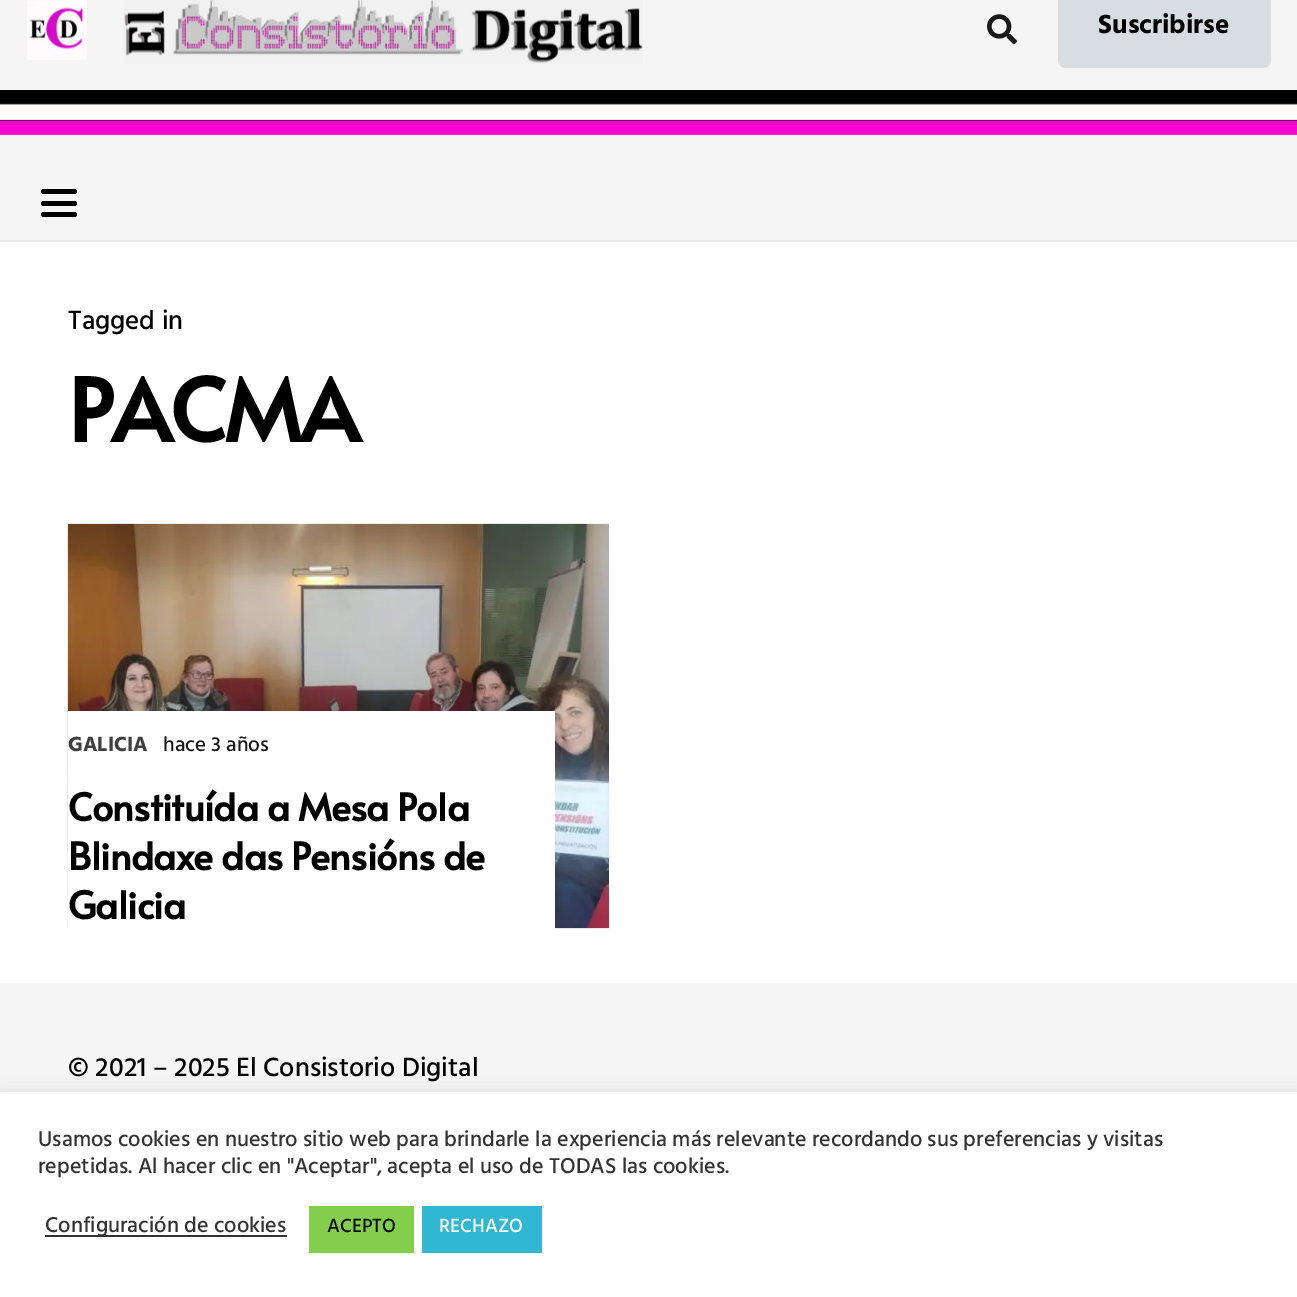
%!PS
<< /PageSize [1297 1297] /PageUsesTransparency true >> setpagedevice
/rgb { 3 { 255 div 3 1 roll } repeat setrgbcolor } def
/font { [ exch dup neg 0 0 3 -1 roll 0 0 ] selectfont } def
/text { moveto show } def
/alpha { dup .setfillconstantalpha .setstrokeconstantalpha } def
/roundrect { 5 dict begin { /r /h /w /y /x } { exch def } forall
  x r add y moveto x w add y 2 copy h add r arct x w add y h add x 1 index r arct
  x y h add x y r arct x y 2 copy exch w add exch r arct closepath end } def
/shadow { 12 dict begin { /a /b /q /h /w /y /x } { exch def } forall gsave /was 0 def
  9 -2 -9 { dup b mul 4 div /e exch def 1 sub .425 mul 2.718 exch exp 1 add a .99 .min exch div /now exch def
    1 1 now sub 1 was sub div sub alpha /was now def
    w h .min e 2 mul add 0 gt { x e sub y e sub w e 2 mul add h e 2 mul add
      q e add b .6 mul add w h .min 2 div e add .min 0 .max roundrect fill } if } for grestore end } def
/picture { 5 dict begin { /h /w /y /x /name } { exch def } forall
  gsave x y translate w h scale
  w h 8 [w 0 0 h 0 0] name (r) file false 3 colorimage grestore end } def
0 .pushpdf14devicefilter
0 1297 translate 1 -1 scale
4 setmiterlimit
255 255 255 rgb
0 0 1297 1297 rectfill
245 245 245 rgb
0 0 1297 240 rectfill
(img_01.rgb) 27 0 60 60 picture
(img_02.rgb) 124 0 519 64 picture
(img_03.rgb) 987 14 30 31 picture
215 221 224 rgb
1058 -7 213 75 8 roundrect fill
(img_04.rgb) 0 90 1297 45 picture
235 235 235 rgb
0 240 moveto 0 2 rlineto 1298 0 rlineto 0 -75 rlineto 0 73 rlineto closepath fill
0 0 0 rgb
41 201 36 5 2.5 roundrect fill
41 189 36 5 2.5 roundrect fill
41 212 36 5 2.5 roundrect fill
(img_05.rgb) 67 523 542 406 picture
255 255 255 rgb
68 711 487 218 rectfill
245 245 245 rgb
0 983 1297 109 rectfill
172 171 171 rgb
0 1091 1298 205 0 7.5 0.3 shadow
255 255 255 rgb
0 1092 1297 205 rectfill
51 51 51 rgb
45 1235 242 2 rectfill
131 206 74 rgb
309 1206 105 47 rectfill
48 184 211 rgb
422 1206 120 47 rectfill
/HindGuntur-Bold 27 font
0 0 0 rgb
(Suscribirse) 1098 33 text
/HindGuntur-Medium 27 font
(Tagged in) 68 329 text
/Alata-Bold 86.5 font
68 442 moveto -1.75 0 (PACMA) ashow
/HindGuntur-Bold 21 font
64 63 64 rgb
(GALICIA) 68 751 text
/HindGuntur-Medium 21 font
26 26 26 rgb
(hace 3 años) 163 751 text
/Alata-Bold 37.75 font
0 0 0 rgb
68 821 moveto -0.75 0 (Constituída a Mesa Pola) ashow
68 870 moveto -0.75 0 (Blindaxe das Pensións de) ashow
68 919 moveto -0.75 0 (Galicia) ashow
/HindGuntur-Medium 27 font
(© 2021 – 2025 El Consistorio Digital) 68 1076 text
/HindGuntur-Medium 22 font
51 51 51 rgb
(Usamos cookies en nuestro sitio web para brindarle la experiencia más relevante recordando sus preferencias y visitas) 38 1146 text
(repetidas. Al hacer clic en "Aceptar", acepta el uso de TODAS las cookies.) 38 1173 text
(Configuración de cookies) 45 1232 text
/HindGuntur-Medium 19.5 font
12 12 12 rgb
(ACEPTO) 327 1232 text
255 255 255 rgb
(RECHAZO) 439 1232 text
.poppdf14devicefilter showpage
